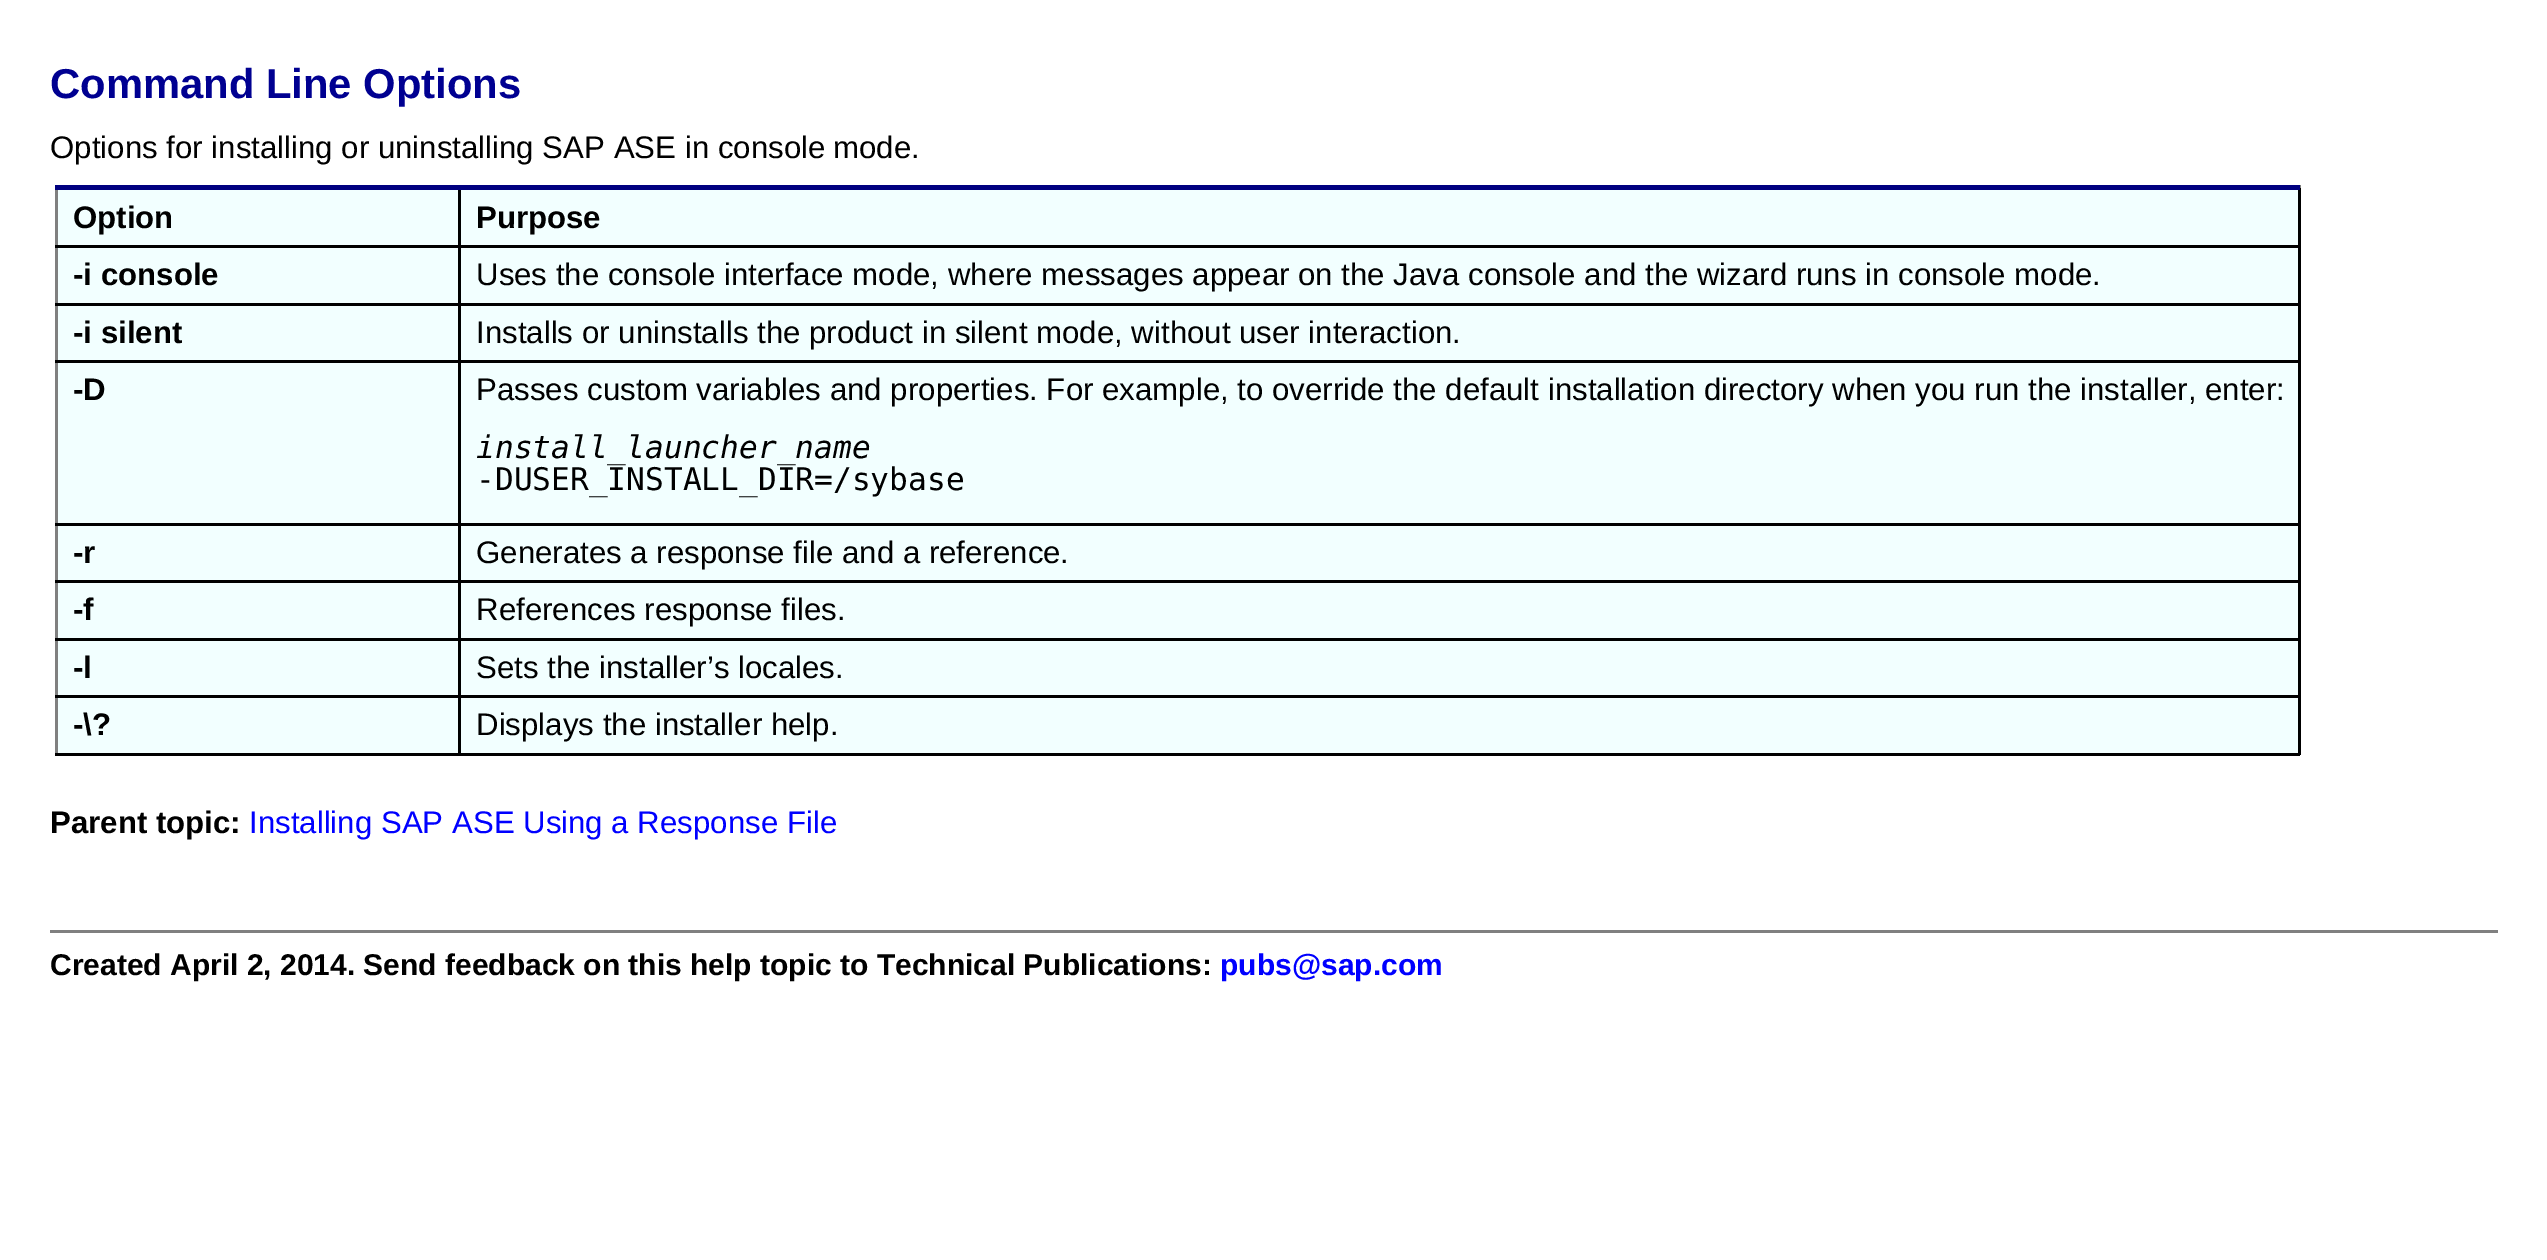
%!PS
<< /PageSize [2547 1260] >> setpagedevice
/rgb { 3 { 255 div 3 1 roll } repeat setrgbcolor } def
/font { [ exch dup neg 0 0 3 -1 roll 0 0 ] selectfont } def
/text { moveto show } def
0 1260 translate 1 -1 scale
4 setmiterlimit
255 255 255 rgb
0 0 2547 1260 rectfill
242 255 255 rgb
58 190 2240 563 rectfill
128 128 128 rgb
2300 185 1 3 rectfill
55 185 3 570 rectfill
0 0 0 rgb
2298 188 3 567 rectfill
458 753 1842 3 rectfill
458 695 3 60 rectfill
458 695 1842 3 rectfill
458 638 3 60 rectfill
458 638 1842 3 rectfill
458 580 3 60 rectfill
458 580 1842 3 rectfill
458 523 3 60 rectfill
458 523 1842 3 rectfill
458 360 3 165 rectfill
458 360 1842 3 rectfill
458 303 3 60 rectfill
458 303 1842 3 rectfill
458 245 3 60 rectfill
458 245 1842 3 rectfill
458 188 3 60 rectfill
0 0 128 rgb
55 185 2245 5 rectfill
0 0 0 rgb
55 245 405 3 rectfill
55 303 405 3 rectfill
55 360 405 3 rectfill
55 523 405 3 rectfill
55 580 405 3 rectfill
55 638 405 3 rectfill
55 695 405 3 rectfill
55 753 405 3 rectfill
128 128 128 rgb
50 930 2448 3 rectfill
/LiberationSans-Bold 41.75 font
0 0 145 rgb
(Command Line Options) 50 98 text
/LiberationSans-Regular 31.2 font
0 0 0 rgb
(Options for installing or uninstalling SAP ASE in console) 50 158 text
(mode.) 833 158 text
/LiberationSans-Bold 31.2 font
(Option) 73 228 text
(Purpose) 476 228 text
(-i console) 73 285 text
/LiberationSans-Regular 31.2 font
(Uses the console interface mode, where messages appear on the Java console and the wizard runs in console mode.) 476 285 text
/LiberationSans-Bold 31.2 font
(-i silent) 73 343 text
/LiberationSans-Regular 31.2 font
(Installs or uninstalls the product in silent mode, without user interaction.) 476 343 text
/LiberationSans-Bold 31.2 font
(-D) 73 400 text
/LiberationSans-Regular 31.2 font
(Passes custom variables and properties. For example, to override the default installation directory when you run the installer, enter:) 476 400 text
/DejaVuSansMono-Italic 31.2 font
(install_launcher_name) 476 458 text
/DejaVuSansMono-Regular 31.2 font
(-DUSER_INSTALL_DIR=/sybase) 476 490 text
/LiberationSans-Bold 31.2 font
(-r) 73 563 text
/LiberationSans-Regular 31.2 font
(Generates a response file and a reference.) 476 563 text
/LiberationSans-Bold 31.2 font
(-f) 73 620 text
/LiberationSans-Regular 31.2 font
(References response files.) 476 620 text
/LiberationSans-Bold 31.2 font
(-l) 73 678 text
/LiberationSans-Regular 31.2 font
(Sets the installer’s locales.) 476 678 text
/LiberationSans-Bold 31.2 font
(-\\?) 73 735 text
/LiberationSans-Regular 31.2 font
(Displays the installer help.) 476 735 text
/LiberationSans-Bold 31.2 font
(Parent topic:) 50 833 text
/LiberationSans-Regular 31.2 font
0 0 255 rgb
(Installing SAP ASE Using a Response File) 249 833 text
/LiberationSans-Bold 30 font
0 0 0 rgb
(Created April 2, 2014. Send feedback on this help topic to Technical Publications:) 50 975 text
0 0 255 rgb
(pubs@sap.com) 1220 975 text
showpage
